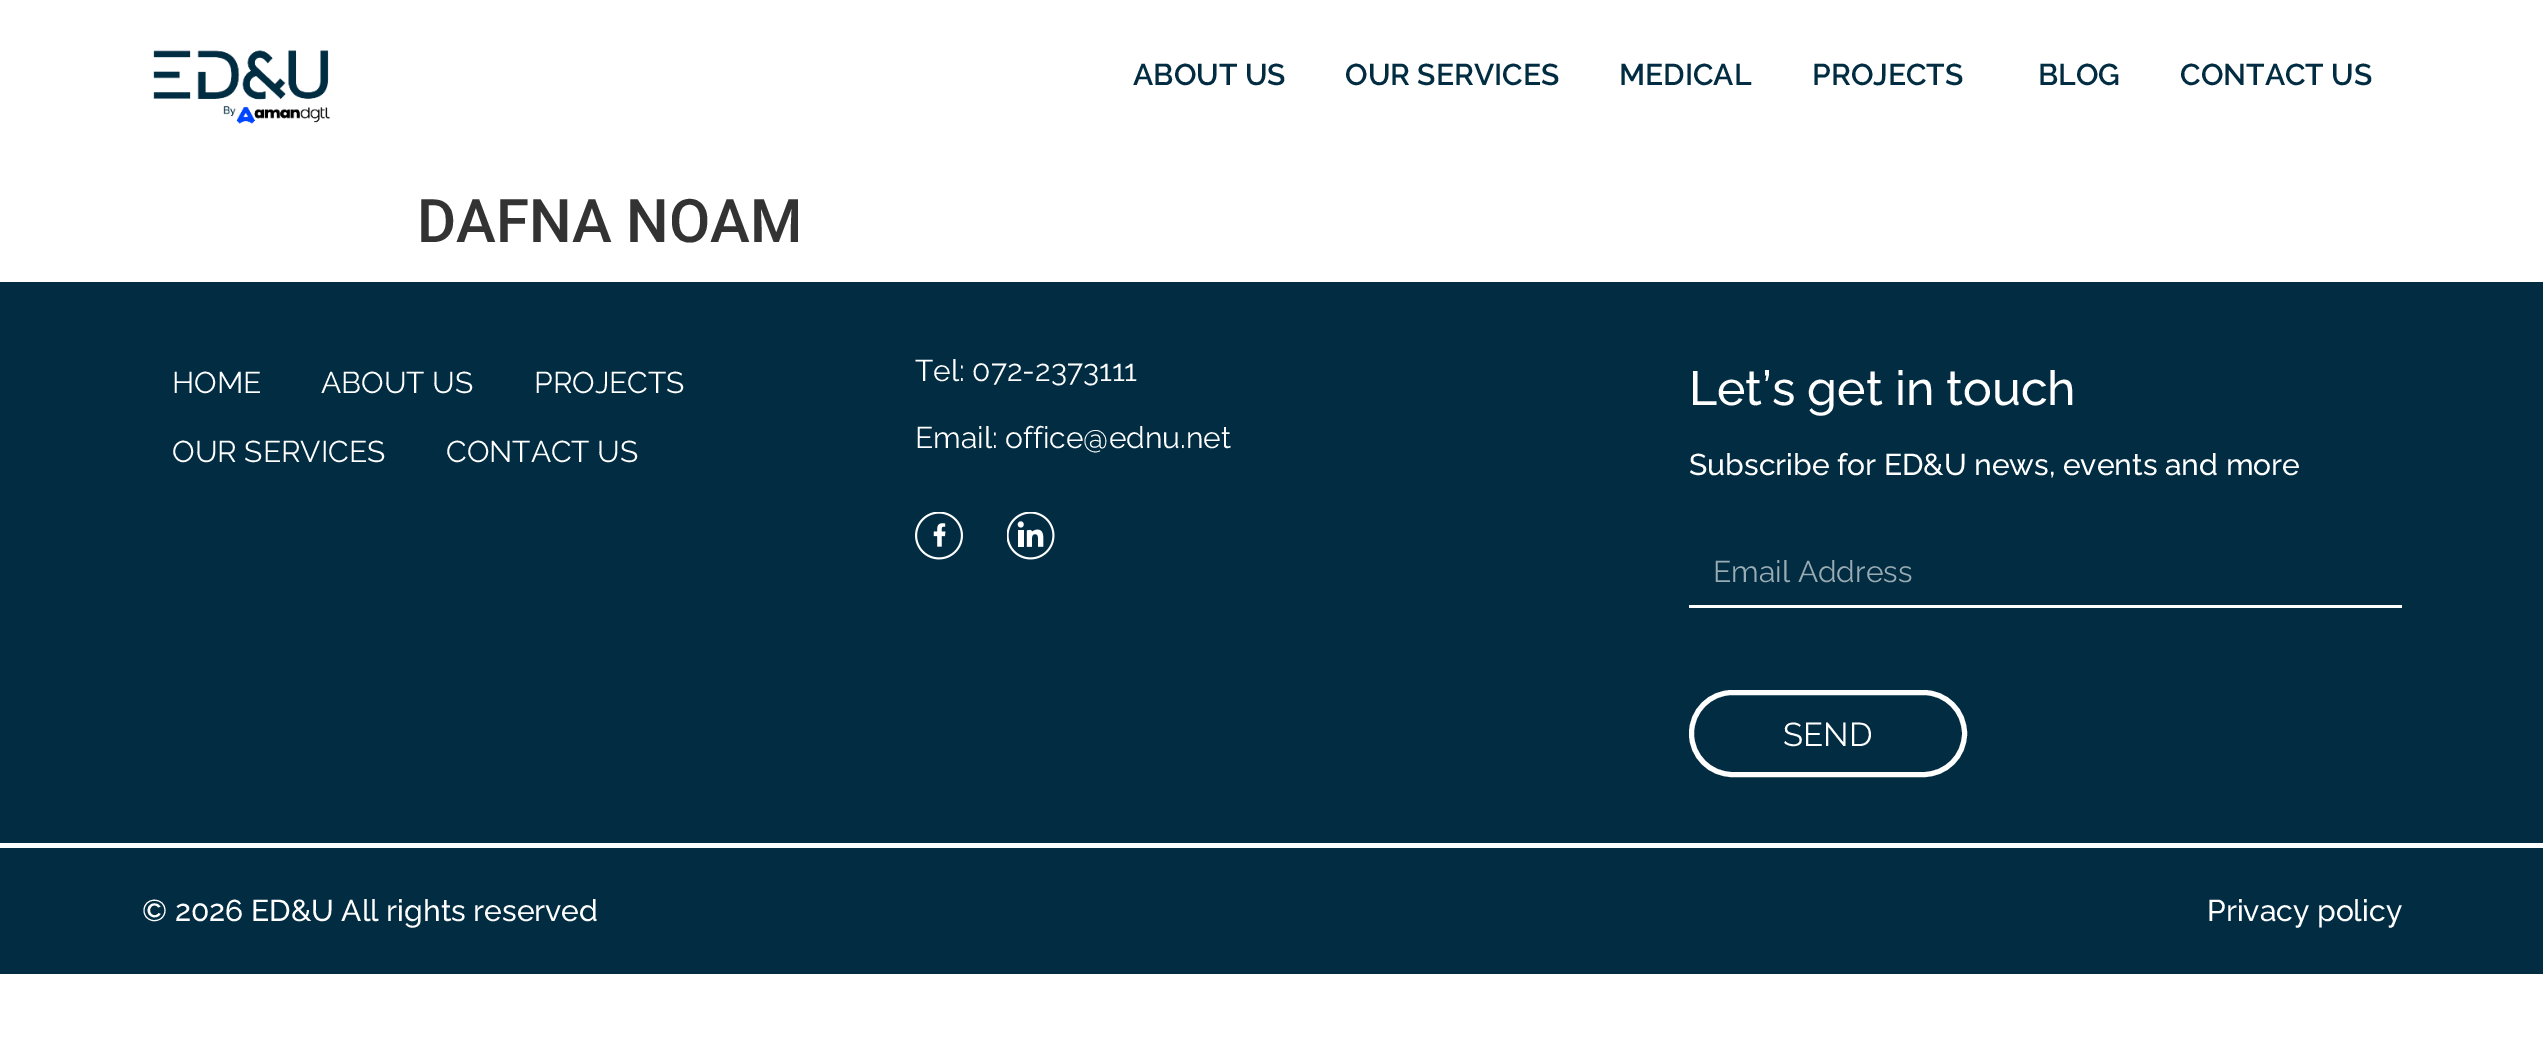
%!PS
<< /PageSize [2543 1050] >> setpagedevice
/rgb { 3 { 255 div 3 1 roll } repeat setrgbcolor } def
/font { [ exch dup neg 0 0 3 -1 roll 0 0 ] selectfont } def
/text { moveto show } def
/roundrect { 5 dict begin { /r /h /w /y /x } { exch def } forall
  x r add y moveto x w add y 2 copy h add r arct x w add y h add x 1 index r arct
  x y h add x y r arct x y 2 copy exch w add exch r arct closepath end } def
/picture { 5 dict begin { /h /w /y /x /name } { exch def } forall
  gsave x y translate w h scale
  w h 8 [w 0 0 h 0 0] name (r) file false 3 colorimage grestore end } def
0 1050 translate 1 -1 scale
4 setmiterlimit
255 255 255 rgb
0 0 2543 1050 rectfill
(img_01.rgb) 153 50 177 74 picture
1 44 66 rgb
0 282 2543 561 rectfill
(img_02.rgb) 915 512 48 48 picture
(img_03.rgb) 1007 512 48 48 picture
255 255 255 rgb
1689 605 713 3 rectfill
5 setlinewidth
1691.5 692.5 273 82 41 roundrect stroke
1 44 66 rgb
0 848 2543 126 rectfill
/Raleway-SemiBold 30 font
(ABOUT US) 1133 85 text
(OUR SERVICES) 1345 85 text
(MEDICAL) 1619 85 text
(PROJECTS) 1812 85 text
(BLOG) 2038 85 text
(CONTACT US) 2180 85 text
/Roboto-Medium 60 font
51 51 51 rgb
(DAFNA NOAM) 417 242 text
/Raleway-Regular 30 font
255 255 255 rgb
(HOME) 172 393 text
(ABOUT US) 321 393 text
(PROJECTS) 534 393 text
(OUR SERVICES) 172 462 text
(CONTACT US) 446 462 text
(Tel: 072-2373111) 915 381 text
(Email: office@ednu.net) 915 448 text
/Raleway-Medium 48 font
(Let’s get in touch) 1689 405 text
/Raleway-Medium 30 font
(Subscribe for ED&U news, events and more) 1689 475 text
/Raleway-Regular 30 font
153 171 179 rgb
(Email Address) 1713 582 text
/Raleway-Regular 33 font
255 255 255 rgb
(SEND) 1783 746 text
/Raleway-Medium 30 font
(© 2026 ED&U All rights reserved) 142 921 text
(Privacy policy) 2207 921 text
showpage
